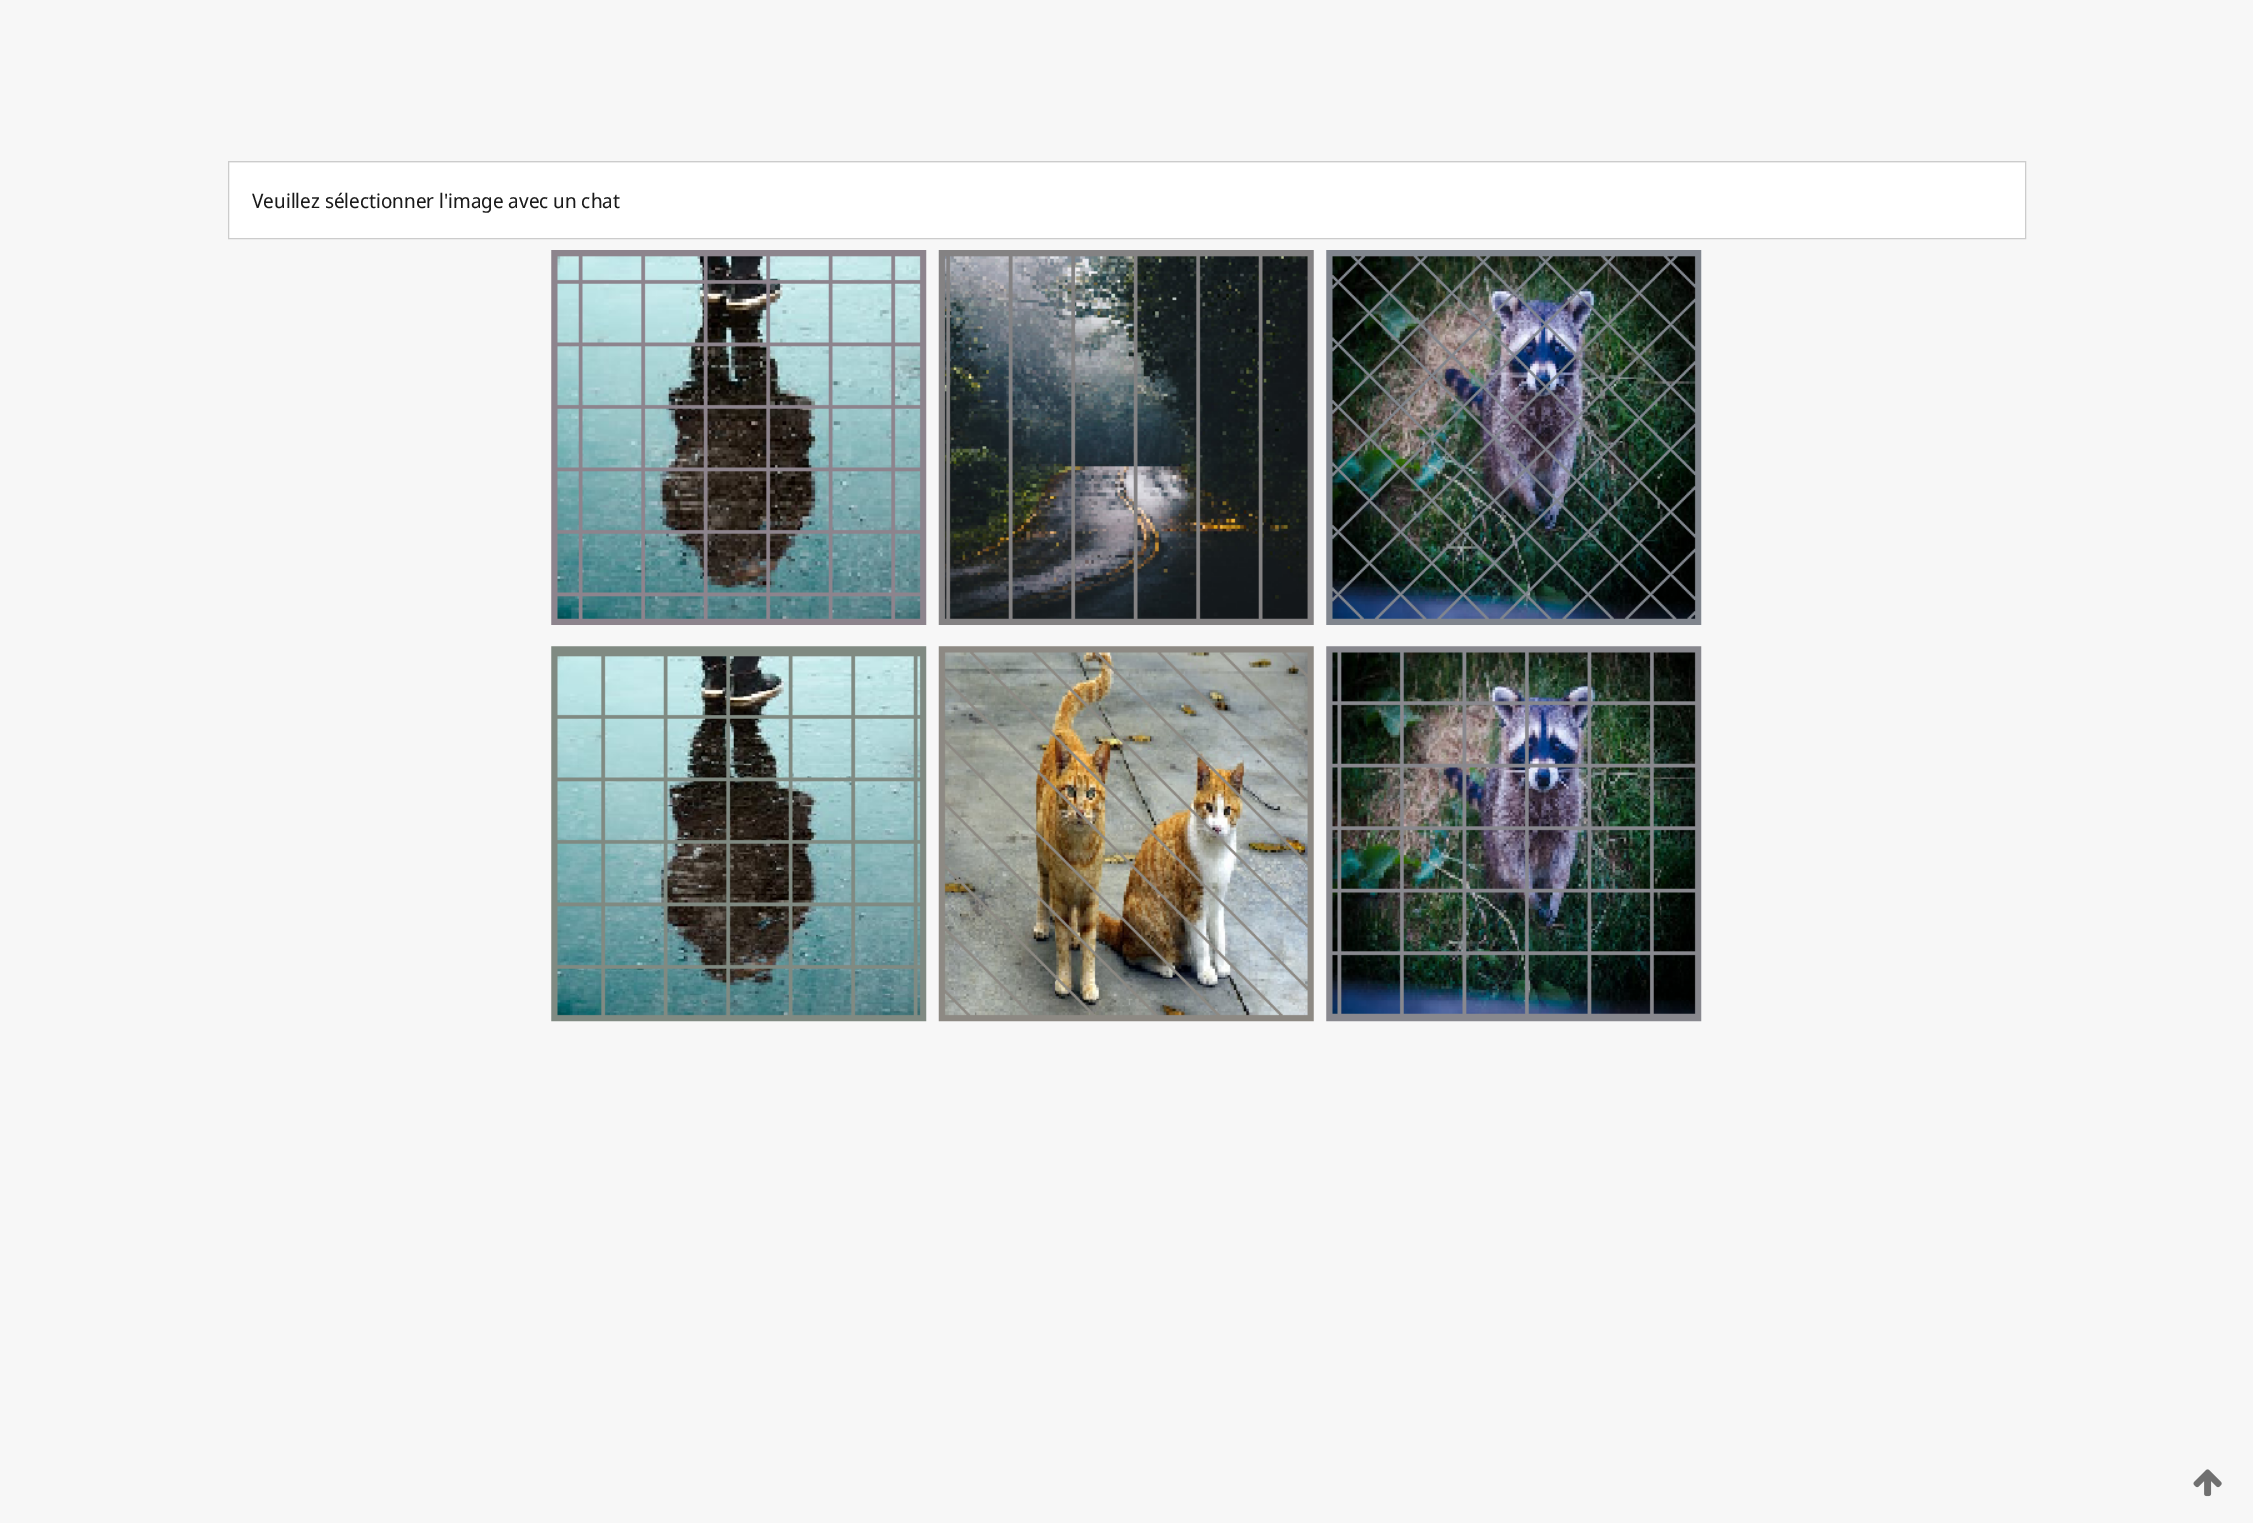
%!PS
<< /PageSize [2253 1523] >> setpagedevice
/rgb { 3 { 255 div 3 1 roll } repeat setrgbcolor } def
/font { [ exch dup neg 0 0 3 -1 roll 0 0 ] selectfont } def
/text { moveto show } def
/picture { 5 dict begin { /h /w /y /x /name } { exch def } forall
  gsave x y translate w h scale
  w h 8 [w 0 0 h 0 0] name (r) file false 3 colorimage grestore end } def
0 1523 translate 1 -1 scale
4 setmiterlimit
247 247 247 rgb
0 0 2253 1523 rectfill
255 255 255 rgb
229 163 1796 75 rectfill
204 204 204 rgb
228.5 161.5 1797 77 rectstroke
(img_01.rgb) 551 250 376 375 picture
(img_02.rgb) 938 250 376 375 picture
(img_03.rgb) 1326 250 376 375 picture
(img_04.rgb) 551 646 376 376 picture
(img_05.rgb) 938 646 376 376 picture
(img_06.rgb) 1326 646 376 376 picture
(img_07.rgb) 2193 1469 29 28 picture
/NotoSansDisplay-Regular 20 font
26 26 26 rgb
(Veuillez sélectionner l'image avec un chat) 252 208 text
showpage
